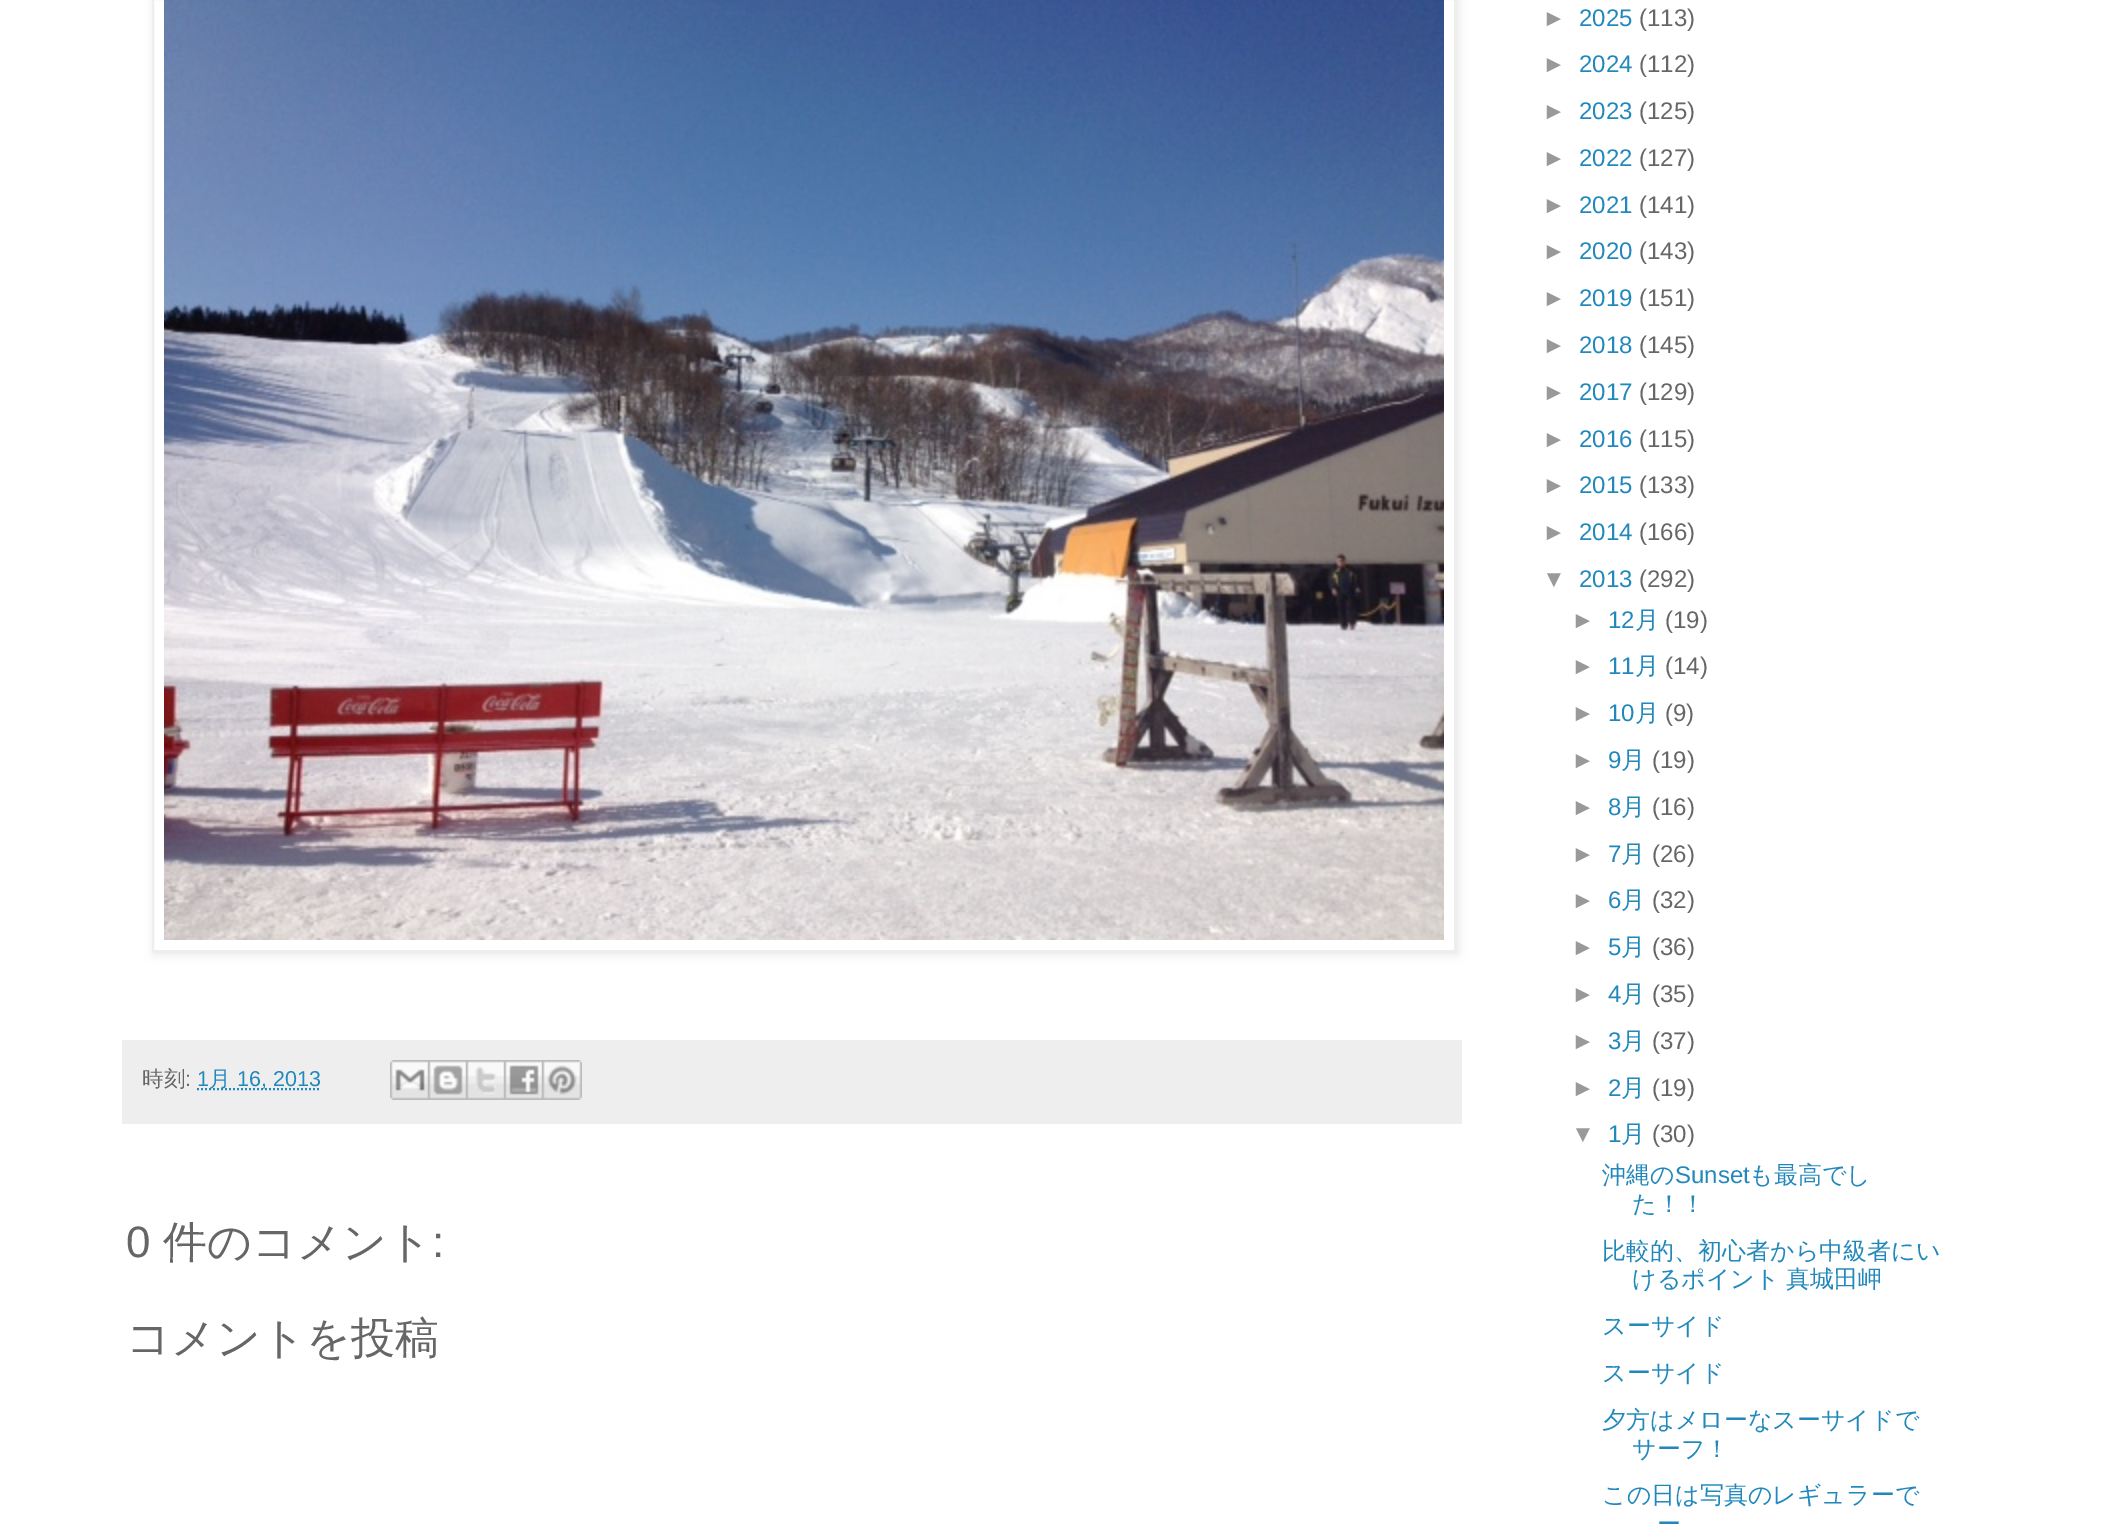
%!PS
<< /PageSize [2103 1526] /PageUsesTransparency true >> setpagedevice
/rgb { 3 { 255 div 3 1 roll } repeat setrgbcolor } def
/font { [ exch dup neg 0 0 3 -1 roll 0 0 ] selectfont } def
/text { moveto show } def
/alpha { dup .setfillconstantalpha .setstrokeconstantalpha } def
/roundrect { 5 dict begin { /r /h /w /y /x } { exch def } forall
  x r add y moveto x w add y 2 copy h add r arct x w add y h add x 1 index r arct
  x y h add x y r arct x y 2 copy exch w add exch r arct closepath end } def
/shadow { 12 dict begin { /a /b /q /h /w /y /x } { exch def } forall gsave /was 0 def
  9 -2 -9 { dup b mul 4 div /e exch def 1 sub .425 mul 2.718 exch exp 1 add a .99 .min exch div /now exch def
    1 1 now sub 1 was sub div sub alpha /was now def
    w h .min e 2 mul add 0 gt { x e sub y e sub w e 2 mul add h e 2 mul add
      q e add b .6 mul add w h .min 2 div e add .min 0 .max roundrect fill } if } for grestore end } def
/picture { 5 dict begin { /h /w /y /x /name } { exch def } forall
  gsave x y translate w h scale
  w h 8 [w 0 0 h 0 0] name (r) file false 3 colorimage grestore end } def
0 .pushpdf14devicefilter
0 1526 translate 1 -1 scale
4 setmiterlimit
255 255 255 rgb
0 0 2103 1526 rectfill
gsave
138 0 moveto 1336 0 rlineto 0 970 rlineto -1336 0 rlineto closepath 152 -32 moveto 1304 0 rlineto 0 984 rlineto -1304 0 rlineto closepath eoclip newpath
0 0 0 rgb
154 -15 1304 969 0 5 0.1 shadow
grestore
238 238 238 rgb
2 setlinewidth
153 -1 1302 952 rectstroke
(img_01.rgb) 164 0 1280 940 picture
122 1040 1340 84 rectfill
34 136 187 rgb
[2 2] 0 setdash
197 1089 moveto 124 0 rlineto stroke
(img_02.rgb) 390 1060 38 40 picture
(img_03.rgb) 428 1060 38 40 picture
(img_04.rgb) 466 1060 38 40 picture
(img_05.rgb) 504 1060 38 40 picture
(img_06.rgb) 542 1060 40 40 picture
/WenQuanYiZenHei-Medium 21.5 font
102 102 102 rgb
(時刻) 142 1086 text
/LiberationSans-Regular 21.5 font
(:) 185 1086 text
34 136 187 rgb
(1) 197 1086 text
/WenQuanYiZenHei-Medium 21.5 font
(月) 209 1086 text
/LiberationSans-Regular 21.5 font
(16, 2013) 237 1086 text
/LiberationSans-Regular 44 font
102 102 102 rgb
(0) 126 1257 text
/WenQuanYiZenHei-Medium 44 font
(件のコメント) 163 1257 text
/LiberationSans-Regular 44 font
(:) 432 1257 text
/WenQuanYiZenHei-Medium 44 font
(コメントを投稿) 126 1353 text
/LiberationSans-Regular 24 font
153 153 153 rgb
(►) 1542 26 text
34 136 187 rgb
(2025) 1579 26 text
102 102 102 rgb
(\(113\)) 1639 26 text
153 153 153 rgb
(►) 1542 72 text
34 136 187 rgb
(2024) 1579 72 text
102 102 102 rgb
(\(112\)) 1639 72 text
153 153 153 rgb
(►) 1542 119 text
34 136 187 rgb
(2023) 1579 119 text
102 102 102 rgb
(\(125\)) 1639 119 text
153 153 153 rgb
(►) 1542 166 text
34 136 187 rgb
(2022) 1579 166 text
102 102 102 rgb
(\(127\)) 1639 166 text
153 153 153 rgb
(►) 1542 213 text
34 136 187 rgb
(2021) 1579 213 text
102 102 102 rgb
(\(141\)) 1639 213 text
153 153 153 rgb
(►) 1542 259 text
34 136 187 rgb
(2020) 1579 259 text
102 102 102 rgb
(\(143\)) 1639 259 text
153 153 153 rgb
(►) 1542 306 text
34 136 187 rgb
(2019) 1579 306 text
102 102 102 rgb
(\(151\)) 1639 306 text
153 153 153 rgb
(►) 1542 353 text
34 136 187 rgb
(2018) 1579 353 text
102 102 102 rgb
(\(145\)) 1639 353 text
153 153 153 rgb
(►) 1542 400 text
34 136 187 rgb
(2017) 1579 400 text
102 102 102 rgb
(\(129\)) 1639 400 text
153 153 153 rgb
(►) 1542 447 text
34 136 187 rgb
(2016) 1579 447 text
102 102 102 rgb
(\(115\)) 1639 447 text
153 153 153 rgb
(►) 1542 493 text
34 136 187 rgb
(2015) 1579 493 text
102 102 102 rgb
(\(133\)) 1639 493 text
153 153 153 rgb
(►) 1542 540 text
34 136 187 rgb
(2014) 1579 540 text
102 102 102 rgb
(\(166\)) 1639 540 text
153 153 153 rgb
(▼) 1542 587 text
34 136 187 rgb
(2013) 1579 587 text
102 102 102 rgb
(\(292\)) 1639 587 text
153 153 153 rgb
(►) 1571 628 text
34 136 187 rgb
(12) 1608 628 text
/WenQuanYiZenHei-Medium 24 font
(月) 1635 628 text
/LiberationSans-Regular 24 font
102 102 102 rgb
(\(19\)) 1665 628 text
153 153 153 rgb
(►) 1571 674 text
34 136 187 rgb
(11) 1608 674 text
/WenQuanYiZenHei-Medium 24 font
(月) 1635 674 text
/LiberationSans-Regular 24 font
102 102 102 rgb
(\(14\)) 1665 674 text
153 153 153 rgb
(►) 1571 721 text
34 136 187 rgb
(10) 1608 721 text
/WenQuanYiZenHei-Medium 24 font
(月) 1635 721 text
/LiberationSans-Regular 24 font
102 102 102 rgb
(\(9\)) 1665 721 text
153 153 153 rgb
(►) 1571 768 text
34 136 187 rgb
(9) 1608 768 text
/WenQuanYiZenHei-Medium 24 font
(月) 1621 768 text
/LiberationSans-Regular 24 font
102 102 102 rgb
(\(19\)) 1652 768 text
153 153 153 rgb
(►) 1571 815 text
34 136 187 rgb
(8) 1608 815 text
/WenQuanYiZenHei-Medium 24 font
(月) 1621 815 text
/LiberationSans-Regular 24 font
102 102 102 rgb
(\(16\)) 1652 815 text
153 153 153 rgb
(►) 1571 862 text
34 136 187 rgb
(7) 1608 862 text
/WenQuanYiZenHei-Medium 24 font
(月) 1621 862 text
/LiberationSans-Regular 24 font
102 102 102 rgb
(\(26\)) 1652 862 text
153 153 153 rgb
(►) 1571 908 text
34 136 187 rgb
(6) 1608 908 text
/WenQuanYiZenHei-Medium 24 font
(月) 1621 908 text
/LiberationSans-Regular 24 font
102 102 102 rgb
(\(32\)) 1652 908 text
153 153 153 rgb
(►) 1571 955 text
34 136 187 rgb
(5) 1608 955 text
/WenQuanYiZenHei-Medium 24 font
(月) 1621 955 text
/LiberationSans-Regular 24 font
102 102 102 rgb
(\(36\)) 1652 955 text
153 153 153 rgb
(►) 1571 1002 text
34 136 187 rgb
(4) 1608 1002 text
/WenQuanYiZenHei-Medium 24 font
(月) 1621 1002 text
/LiberationSans-Regular 24 font
102 102 102 rgb
(\(35\)) 1652 1002 text
153 153 153 rgb
(►) 1571 1049 text
34 136 187 rgb
(3) 1608 1049 text
/WenQuanYiZenHei-Medium 24 font
(月) 1621 1049 text
/LiberationSans-Regular 24 font
102 102 102 rgb
(\(37\)) 1652 1049 text
153 153 153 rgb
(►) 1571 1096 text
34 136 187 rgb
(2) 1608 1096 text
/WenQuanYiZenHei-Medium 24 font
(月) 1621 1096 text
/LiberationSans-Regular 24 font
102 102 102 rgb
(\(19\)) 1652 1096 text
153 153 153 rgb
(▼) 1571 1142 text
34 136 187 rgb
(1) 1608 1142 text
/WenQuanYiZenHei-Medium 24 font
(月) 1621 1142 text
/LiberationSans-Regular 24 font
102 102 102 rgb
(\(30\)) 1652 1142 text
/WenQuanYiZenHei-Medium 24 font
34 136 187 rgb
(沖縄の) 1602 1183 text
/LiberationSans-Regular 24 font
(Sunset) 1675 1183 text
/WenQuanYiZenHei-Medium 24 font
(も最高でし) 1749 1183 text
(た！！) 1632 1212 text
(比較的、初心者から中級者にい) 1602 1259 text
(けるポイント) 1632 1287 text
(真城田岬) 1786 1287 text
(スーサイド) 1602 1334 text
(スーサイド) 1602 1381 text
(夕方はメローなスーサイドで) 1602 1428 text
(サーフ！) 1632 1457 text
(この日は写真のレギュラーで) 1602 1503 text
1657 1532 moveto -1 0 32 (ー) widthshow
.poppdf14devicefilter showpage
